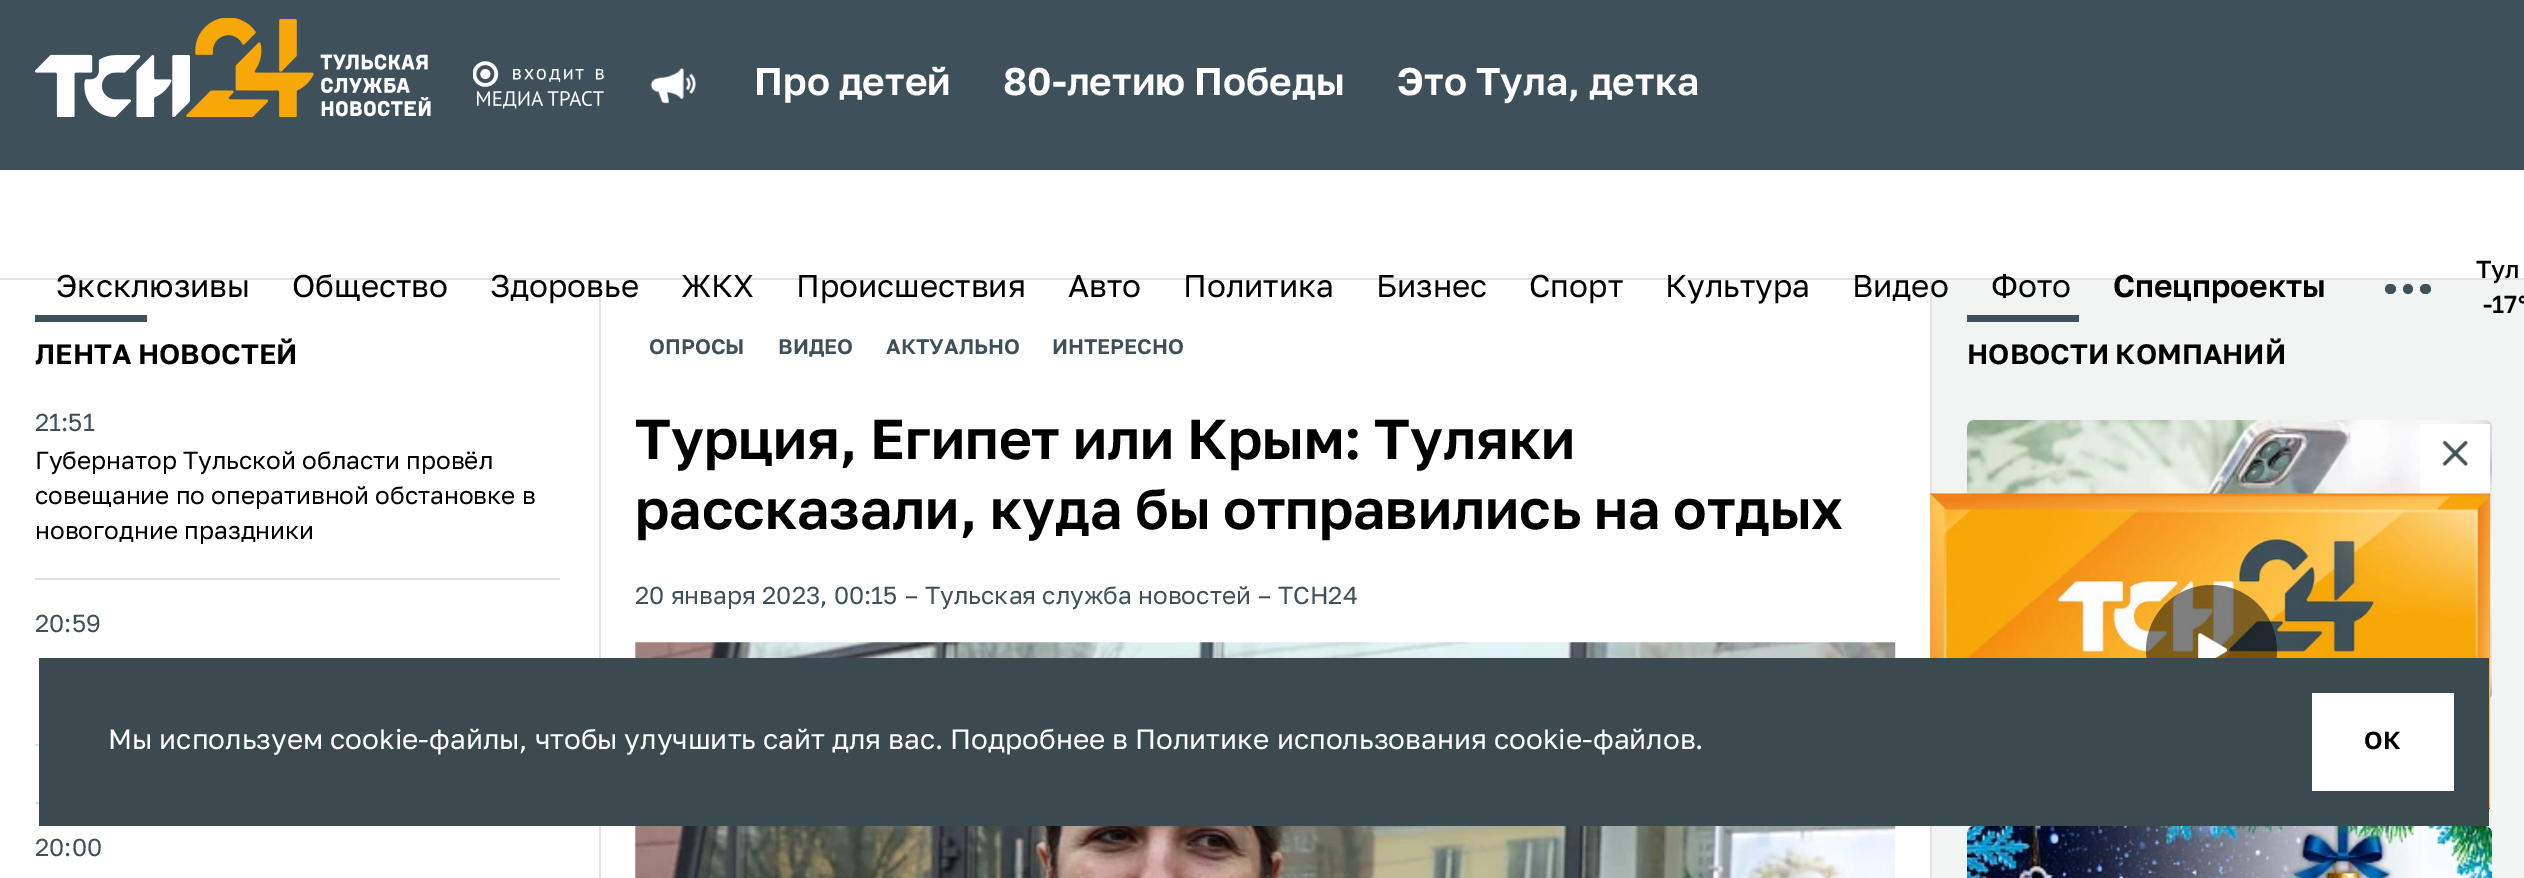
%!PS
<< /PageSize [2524 878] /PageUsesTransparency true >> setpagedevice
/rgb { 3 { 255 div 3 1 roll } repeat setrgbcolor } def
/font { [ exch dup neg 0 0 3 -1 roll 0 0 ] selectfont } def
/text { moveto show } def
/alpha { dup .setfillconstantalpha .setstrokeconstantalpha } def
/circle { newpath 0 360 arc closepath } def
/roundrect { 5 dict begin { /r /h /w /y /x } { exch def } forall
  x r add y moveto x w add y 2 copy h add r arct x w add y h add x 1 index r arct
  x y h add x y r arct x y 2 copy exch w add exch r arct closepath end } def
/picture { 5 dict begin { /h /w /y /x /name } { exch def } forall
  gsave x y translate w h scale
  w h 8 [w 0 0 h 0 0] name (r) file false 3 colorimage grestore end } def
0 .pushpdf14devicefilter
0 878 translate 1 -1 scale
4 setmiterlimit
255 255 255 rgb
0 0 2524 878 rectfill
62 80 89 rgb
0 0 2524 170 rectfill
(img_01.rgb) 35 18 396 99 picture
(img_02.rgb) 473 61 131 48 picture
(img_03.rgb) 650 67 46 37 picture
226 226 226 rgb
0 278 2524 2 rectfill
242 244 244 rgb
1932 280 592 598 rectfill
62 80 89 rgb
2385 284 11 10 5 roundrect fill
2408 289 5 circle fill
2420 284 11 10 5 roundrect fill
35 315 112 7 rectfill
226 226 226 rgb
35 578 525 2 rectfill
35 744 4 2 rectfill
35 802 4 2 rectfill
599 280 2 598 rectfill
(img_04.rgb) 635 642 1261 236 picture
1930 280 2 598 rectfill
62 80 89 rgb
1967 315 112 7 rectfill
(img_05.rgb) 1967 420 525 278 picture
(img_06.rgb) 1967 826 525 52 picture
255 255 255 rgb
2420 424 70 70 rectfill
(img_07.rgb) 2442 440 27 27 picture
0 0 0 rgb
1930 494 560 315 rectfill
(img_08.rgb) 1930 493 561 316 picture
0.5 alpha
2211.5 650.5 65.5 circle fill
1 alpha
(img_09.rgb) 2198 633 29 25 picture
59 74 79 rgb
39 658 2450 168 rectfill
255 255 255 rgb
2312 693 142 98 rectfill
/GolosText-SemiBold 38.5 font
(Про детей) 754 95 text
(80-летию Победы) 1003 95 text
(Это Тула, детка) 1397 95 text
/GolosText-Regular 31.5 font
0 0 0 rgb
(Эксклюзивы) 56 297 text
(Общество) 292 297 text
(Здоровье) 490 297 text
(ЖКХ) 681 297 text
(Происшествия) 796 297 text
(Авто) 1068 297 text
(Политика) 1183 297 text
(Бизнес) 1376 297 text
(Спорт) 1529 297 text
(Культура) 1665 297 text
(Видео) 1852 297 text
(Фото) 1991 297 text
/GolosText-SemiBold 31.5 font
(Спецпроекты) 2113 297 text
/GolosText-Medium 24.5 font
(Тул) 2476 278 text
(-17°) 2483 313 text
/GolosText-SemiBold 28 font
(ЛЕНТА НОВОСТЕЙ) 35 364 text
/GolosText-Regular 24.5 font
62 80 89 rgb
(21:51) 35 431 text
0 0 0 rgb
(Губернатор Тульской области провёл) 35 469 text
(совещание по оперативной обстановке в) 35 504 text
(новогодние праздники) 35 539 text
62 80 89 rgb
(20:59) 35 632 text
(20:00) 35 856 text
/GolosText-SemiBold 21 font
(ОПРОСЫ) 649 354 text
(ВИДЕО) 778 354 text
(АКТУАЛЬНО) 886 354 text
(ИНТЕРЕСНО) 1052 354 text
/GolosText-SemiBold 56 font
0 0 0 rgb
(Турция, Египет или Крым: Туляки) 635 459 text
(рассказали, куда бы отправились на отдых) 635 529 text
/GolosText-Regular 24.5 font
62 80 89 rgb
(20 января 2023, 00:15) 635 604 text
(–) 905 604 text
(Тульская служба новостей) 925 604 text
(–) 1258 604 text
(ТСН24) 1278 604 text
/GolosText-SemiBold 28 font
0 0 0 rgb
(НОВОСТИ КОМПАНИЙ) 1967 364 text
/GolosText-Regular 28 font
255 255 255 rgb
(Мы используем cookie-файлы, чтобы улучшить сайт для вас. Подробнее в Политике использования cookie-файлов.) 108 749 text
/GolosText-SemiBold 24.5 font
0 0 0 rgb
(ОК) 2364 749 text
.poppdf14devicefilter showpage
